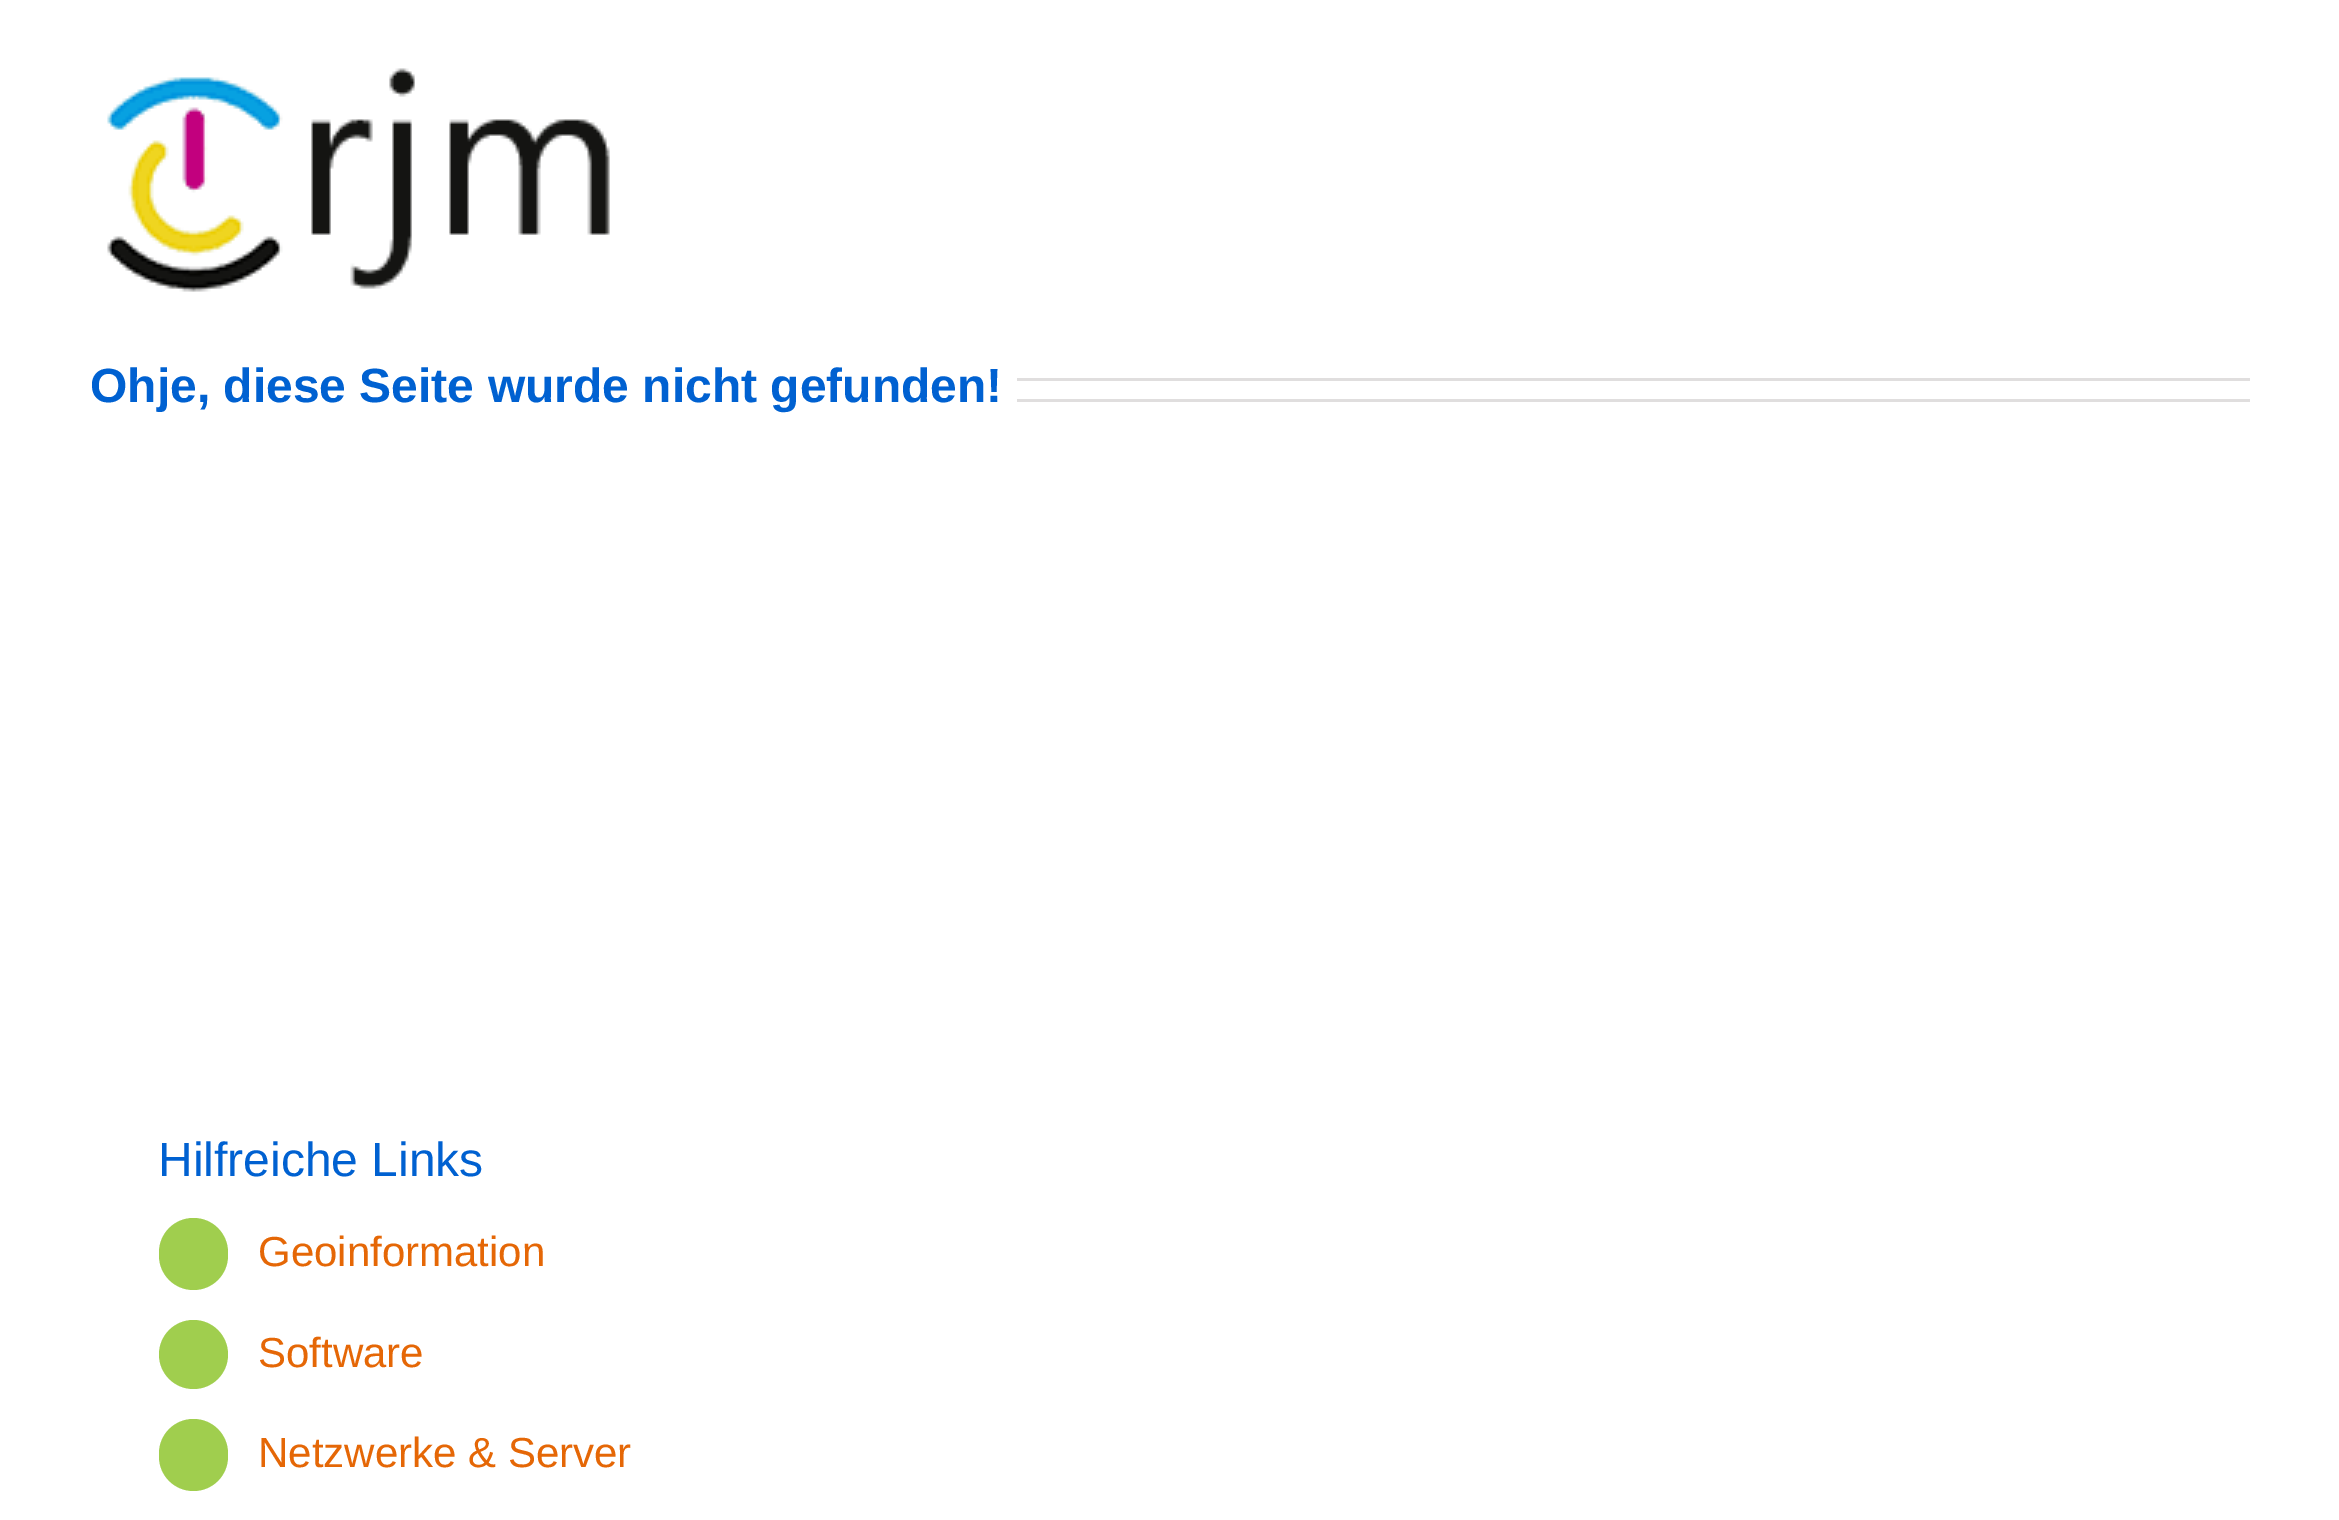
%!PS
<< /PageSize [2339 1520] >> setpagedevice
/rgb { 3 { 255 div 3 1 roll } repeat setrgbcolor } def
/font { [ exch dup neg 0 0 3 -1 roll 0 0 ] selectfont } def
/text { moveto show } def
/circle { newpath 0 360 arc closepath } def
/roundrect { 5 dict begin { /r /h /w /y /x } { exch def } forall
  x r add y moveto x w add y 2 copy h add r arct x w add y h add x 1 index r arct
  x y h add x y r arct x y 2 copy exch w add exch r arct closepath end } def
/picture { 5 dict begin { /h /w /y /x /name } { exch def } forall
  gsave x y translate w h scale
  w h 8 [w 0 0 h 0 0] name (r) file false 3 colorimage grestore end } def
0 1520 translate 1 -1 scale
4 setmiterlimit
255 255 255 rgb
0 0 2339 1520 rectfill
(img_01.rgb) 107 68 503 224 picture
224 222 222 rgb
1017 378 1233 3 rectfill
1017 399 1233 3 rectfill
160 206 78 rgb
159 1218 69 72 34.5 roundrect fill
193.5 1354.5 34.5 circle fill
159 1419 69 72 34.5 roundrect fill
/LiberationSans-Bold 48 font
0 97 209 rgb
(Ohje, diese Seite wurde nicht gefunden!) 90 402 text
/LiberationSans-Regular 48 font
(Hilfreiche Links) 158 1176 text
/LiberationSans-Regular 42 font
229 103 6 rgb
(Geoinformation) 258 1266 text
(Software) 258 1367 text
(Netzwerke & Server) 258 1467 text
showpage
